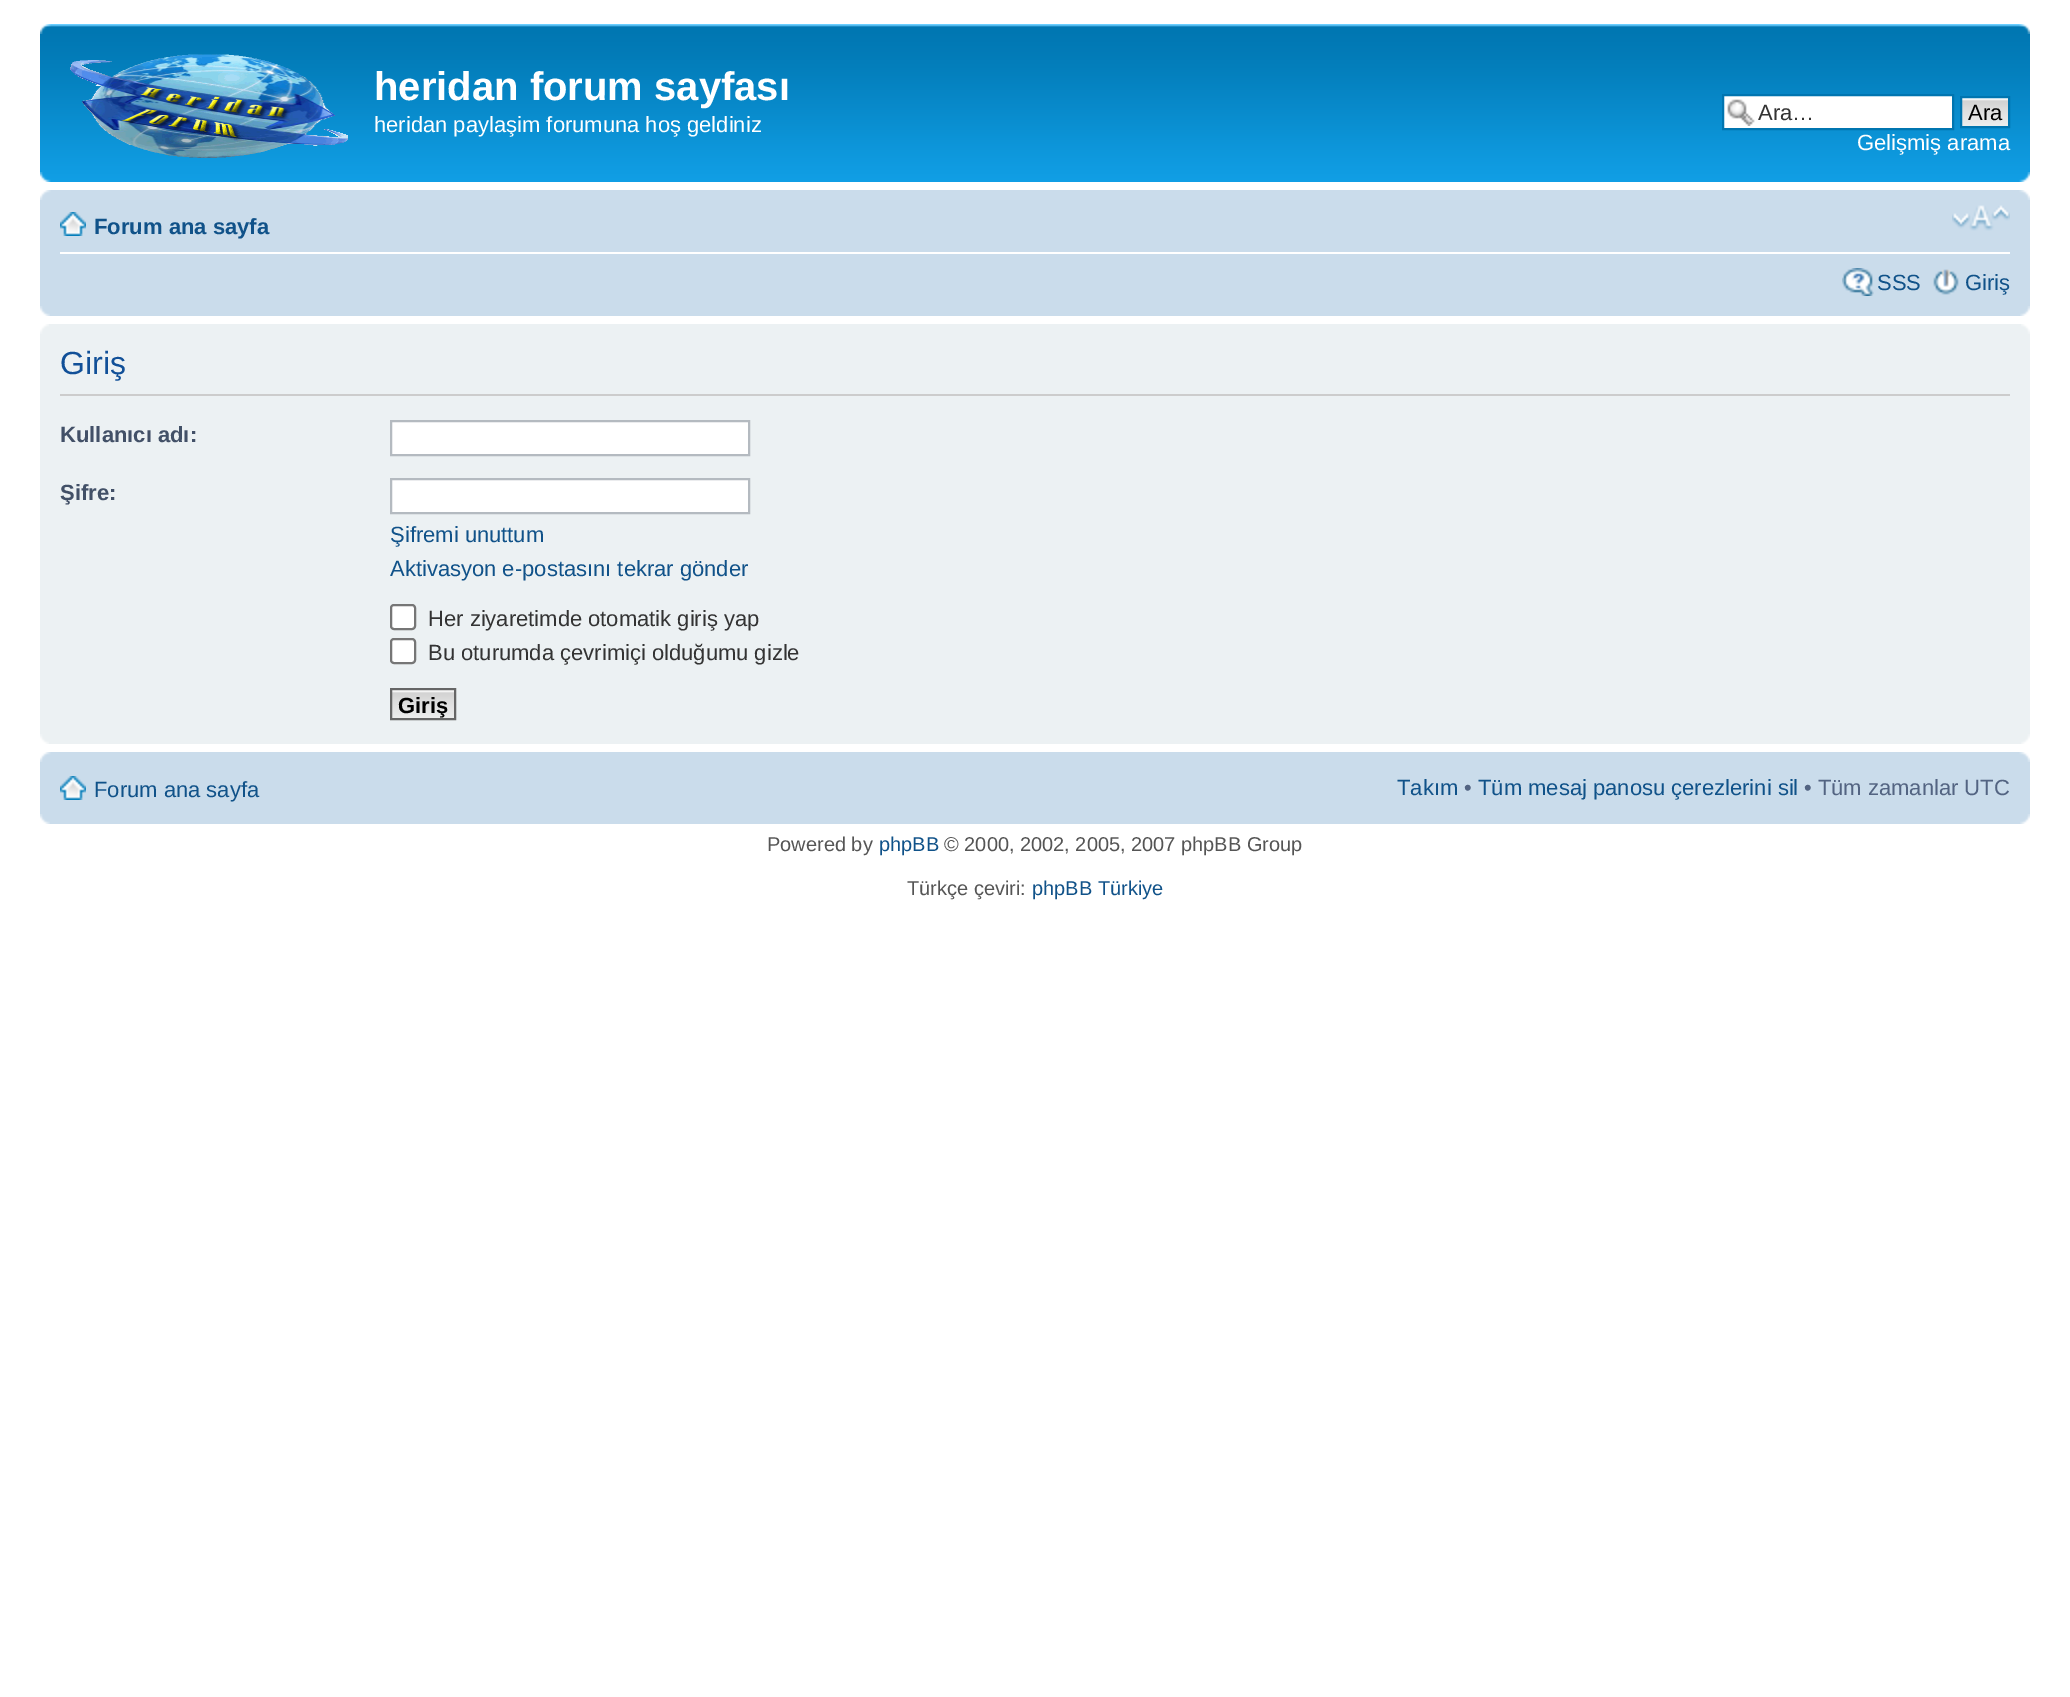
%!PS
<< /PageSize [2070 1697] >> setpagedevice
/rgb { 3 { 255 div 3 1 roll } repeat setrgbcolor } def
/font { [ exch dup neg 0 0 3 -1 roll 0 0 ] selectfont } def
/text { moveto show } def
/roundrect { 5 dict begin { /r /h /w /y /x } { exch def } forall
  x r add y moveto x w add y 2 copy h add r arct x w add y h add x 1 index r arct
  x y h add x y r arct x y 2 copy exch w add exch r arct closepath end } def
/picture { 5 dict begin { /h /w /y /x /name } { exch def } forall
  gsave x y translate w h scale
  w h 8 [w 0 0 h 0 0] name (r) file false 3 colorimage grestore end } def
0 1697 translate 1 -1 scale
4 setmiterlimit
255 255 255 rgb
0 0 2070 1697 rectfill
(img_01.rgb) 40 24 1990 158 picture
(img_02.rgb) 40 24 11 10 picture
(img_03.rgb) 2019 24 11 10 picture
(img_04.rgb) 70 54 278 104 picture
1724 96 228 32 rectfill
(img_05.rgb) 1727 99 28 27 picture
0 117 176 rgb
2 setlinewidth
1723 95 230 34 rectstroke
(img_06.rgb) 1962 98 46 28 picture
1961 97 48 30 rectstroke
(img_07.rgb) 40 172 11 10 picture
(img_08.rgb) 2019 172 11 10 picture
202 220 235 rgb
40 190 1990 126 rectfill
(img_09.rgb) 40 190 11 10 picture
(img_10.rgb) 2019 190 11 10 picture
255 255 255 rgb
60 252 1950 2 rectfill
(img_11.rgb) 60 212 26 24 picture
(img_12.rgb) 1952 205 58 26 picture
(img_13.rgb) 1842 268 32 28 picture
(img_14.rgb) 1933 269 26 26 picture
(img_15.rgb) 40 306 10 10 picture
(img_16.rgb) 2020 306 10 10 picture
236 241 243 rgb
40 324 1990 420 rectfill
(img_17.rgb) 40 324 9 10 picture
(img_18.rgb) 2021 324 9 10 picture
204 204 204 rgb
60 394 1950 2 rectfill
255 255 255 rgb
391 421 moveto 358 0 rlineto 0 34 rlineto -358 0 rlineto closepath gsave fill grestore
180 186 192 rgb
stroke
255 255 255 rgb
391 479 moveto 358 0 rlineto 0 34 rlineto -358 0 rlineto closepath gsave fill grestore
180 186 192 rgb
stroke
255 255 255 rgb
391 605 24 24 3 roundrect gsave fill grestore
118 118 118 rgb
stroke
255 255 255 rgb
391 639 24 24 3 roundrect gsave fill grestore
118 118 118 rgb
stroke
(img_19.rgb) 392 690 62 28 picture
102 102 102 rgb
391 689 64 30 rectstroke
(img_20.rgb) 40 734 9 10 picture
(img_21.rgb) 2021 734 9 10 picture
202 220 235 rgb
40 752 1990 72 rectfill
(img_09.rgb) 40 752 11 10 picture
(img_10.rgb) 2019 752 11 10 picture
(img_11.rgb) 60 776 26 24 picture
(img_15.rgb) 40 814 10 10 picture
(img_16.rgb) 2020 814 10 10 picture
/LiberationSans-Bold 40 font
255 255 255 rgb
(heridan forum sayfası) 374 100 text
/LiberationSans-Regular 22 font
(heridan paylaşim forumuna hoş geldiniz) 374 132 text
51 51 51 rgb
(Ara…) 1758 120 text
0 0 0 rgb
(Ara) 1968 120 text
255 255 255 rgb
(Gelişmiş arama) 1857 150 text
/LiberationSans-Bold 22 font
16 82 137 rgb
(Forum ana sayfa) 94 234 text
/LiberationSans-Regular 22 font
(SSS) 1877 290 text
(Giriş) 1965 290 text
/LiberationSans-Regular 32 font
17 80 152 rgb
(Giriş) 60 374 text
/LiberationSans-Bold 22 font
66 80 103 rgb
(Kullanıcı adı:) 60 442 text
(Şifre:) 60 500 text
/LiberationSans-Regular 22 font
16 82 137 rgb
(Şifremi unuttum) 390 542 text
(Aktivasyon e-postasını tekrar gönder) 390 576 text
51 51 51 rgb
(Her ziyaretimde otomatik giriş yap) 428 626 text
(Bu oturumda çevrimiçi olduğumu gizle) 428 660 text
/LiberationSans-Bold 22 font
0 0 0 rgb
(Giriş) 398 713 text
/LiberationSans-Regular 22 font
16 82 137 rgb
(Forum ana sayfa) 94 797 text
(Takım) 1397 795 text
83 100 130 rgb
(•) 1464 795 text
16 82 137 rgb
(Tüm mesaj panosu çerezlerini sil) 1478 795 text
83 100 130 rgb
(• Tüm zamanlar UTC) 1804 795 text
/LiberationSans-Regular 20 font
85 85 85 rgb
(Powered by) 767 851 text
16 82 137 rgb
(phpBB) 879 851 text
85 85 85 rgb
(© 2000, 2002, 2005, 2007 phpBB Group) 944 851 text
(Türkçe çeviri:) 907 895 text
16 82 137 rgb
(phpBB Türkiye) 1032 895 text
showpage
